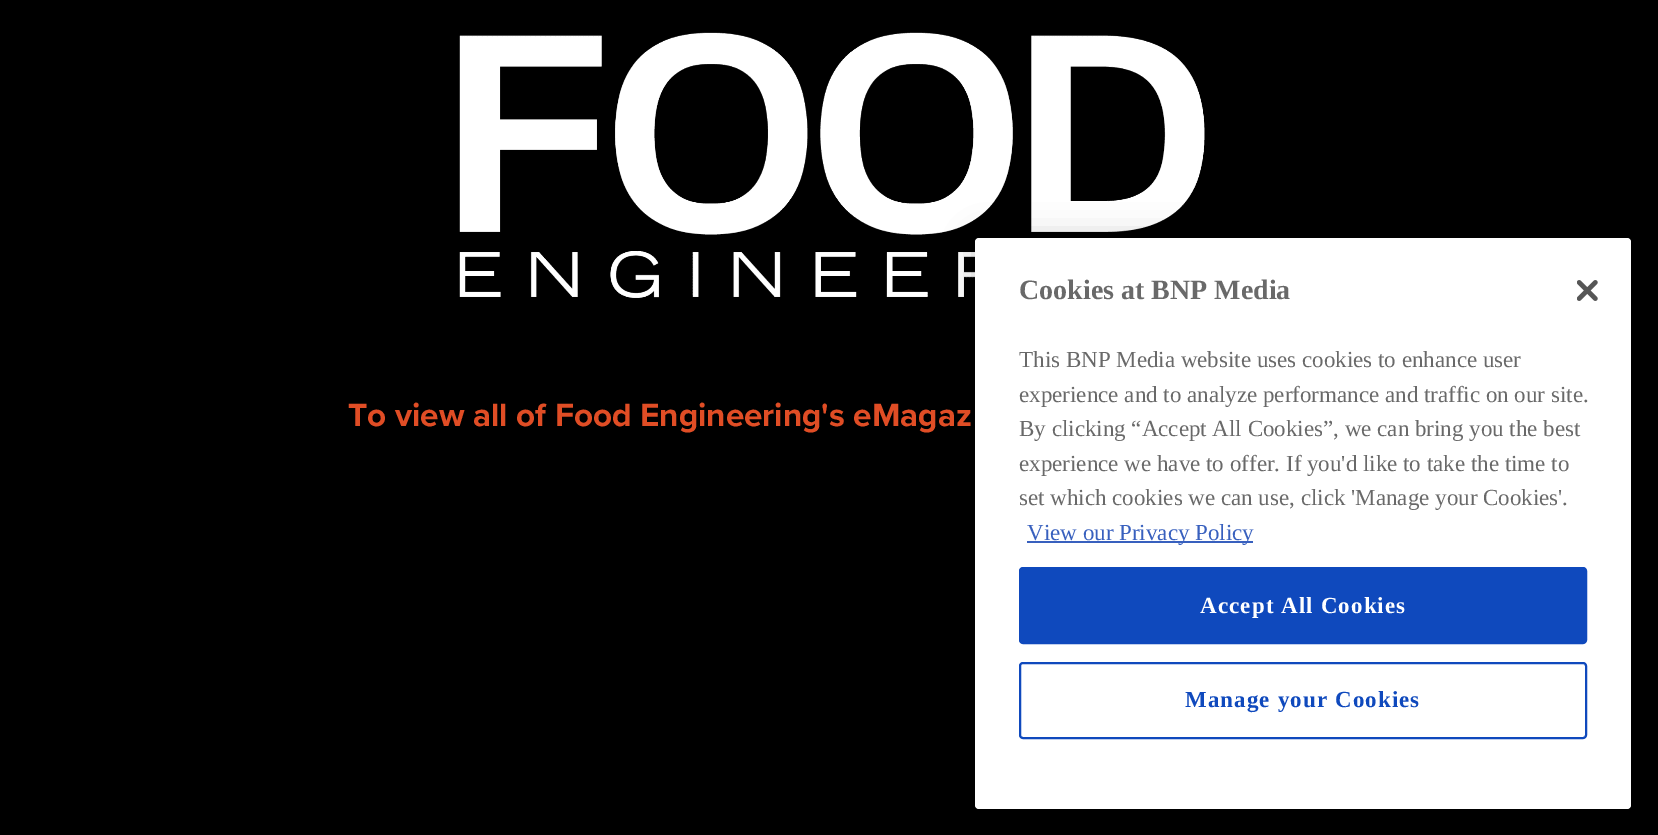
%!PS
<< /PageSize [1658 835] /PageUsesTransparency true >> setpagedevice
/rgb { 3 { 255 div 3 1 roll } repeat setrgbcolor } def
/font { [ exch dup neg 0 0 3 -1 roll 0 0 ] selectfont } def
/text { moveto show } def
/alpha { dup .setfillconstantalpha .setstrokeconstantalpha } def
/roundrect { 5 dict begin { /r /h /w /y /x } { exch def } forall
  x r add y moveto x w add y 2 copy h add r arct x w add y h add x 1 index r arct
  x y h add x y r arct x y 2 copy exch w add exch r arct closepath end } def
/shadow { 12 dict begin { /a /b /q /h /w /y /x } { exch def } forall gsave /was 0 def
  9 -2 -9 { dup b mul 4 div /e exch def 1 sub .425 mul 2.718 exch exp 1 add a .99 .min exch div /now exch def
    1 1 now sub 1 was sub div sub alpha /was now def
    w h .min e 2 mul add 0 gt { x e sub y e sub w e 2 mul add h e 2 mul add
      q e add b .6 mul add w h .min 2 div e add .min 0 .max roundrect fill } if } for grestore end } def
/picture { 5 dict begin { /h /w /y /x /name } { exch def } forall
  gsave x y translate w h scale
  w h 8 [w 0 0 h 0 0] name (r) file false 3 colorimage grestore end } def
0 .pushpdf14devicefilter
0 835 translate 1 -1 scale
4 setmiterlimit
0 0 0 rgb
0 0 1658 835 rectfill
(img_01.rgb) 459 32 746 266 picture
975 238 656 571 4 16 0.2 shadow
255 255 255 rgb
975 238 656 571 4 roundrect fill
56 96 190 rgb
1027 541 226 2 rectfill
(img_02.rgb) 1577 280 21 21 picture
15 73 189 rgb
1020 568 566 75 3 roundrect gsave fill grestore
2 setlinewidth
stroke
1020 663 566 75 3 roundrect stroke
/ProximaNova-Bold 33.25 font
224 77 37 rgb
(To view all of Food Engineering's eMagaz) 348 426 text
/LiberationSerif-Bold 28 font
105 105 105 rgb
(Cookies at BNP Media) 1019 299 text
/LiberationSerif-Regular 23 font
(This BNP Media website uses cookies to enhance user) 1019 367 text
(experience and to analyze performance and traffic on our site.) 1019 402 text
(By clicking “Accept All Cookies”, we can bring you the best) 1019 436 text
(experience we have to offer. If you'd like to take the time to) 1019 471 text
(set which cookies we can use, click 'Manage your Cookies'.) 1019 505 text
56 96 190 rgb
(View our Privacy Policy) 1027 540 text
/LiberationSerif-Bold 23 font
255 255 255 rgb
1200 613 moveto 1.1 0 (Accept All Cookies) ashow
15 73 189 rgb
1185 707 moveto 1.1 0 (Manage your Cookies) ashow
.poppdf14devicefilter showpage
